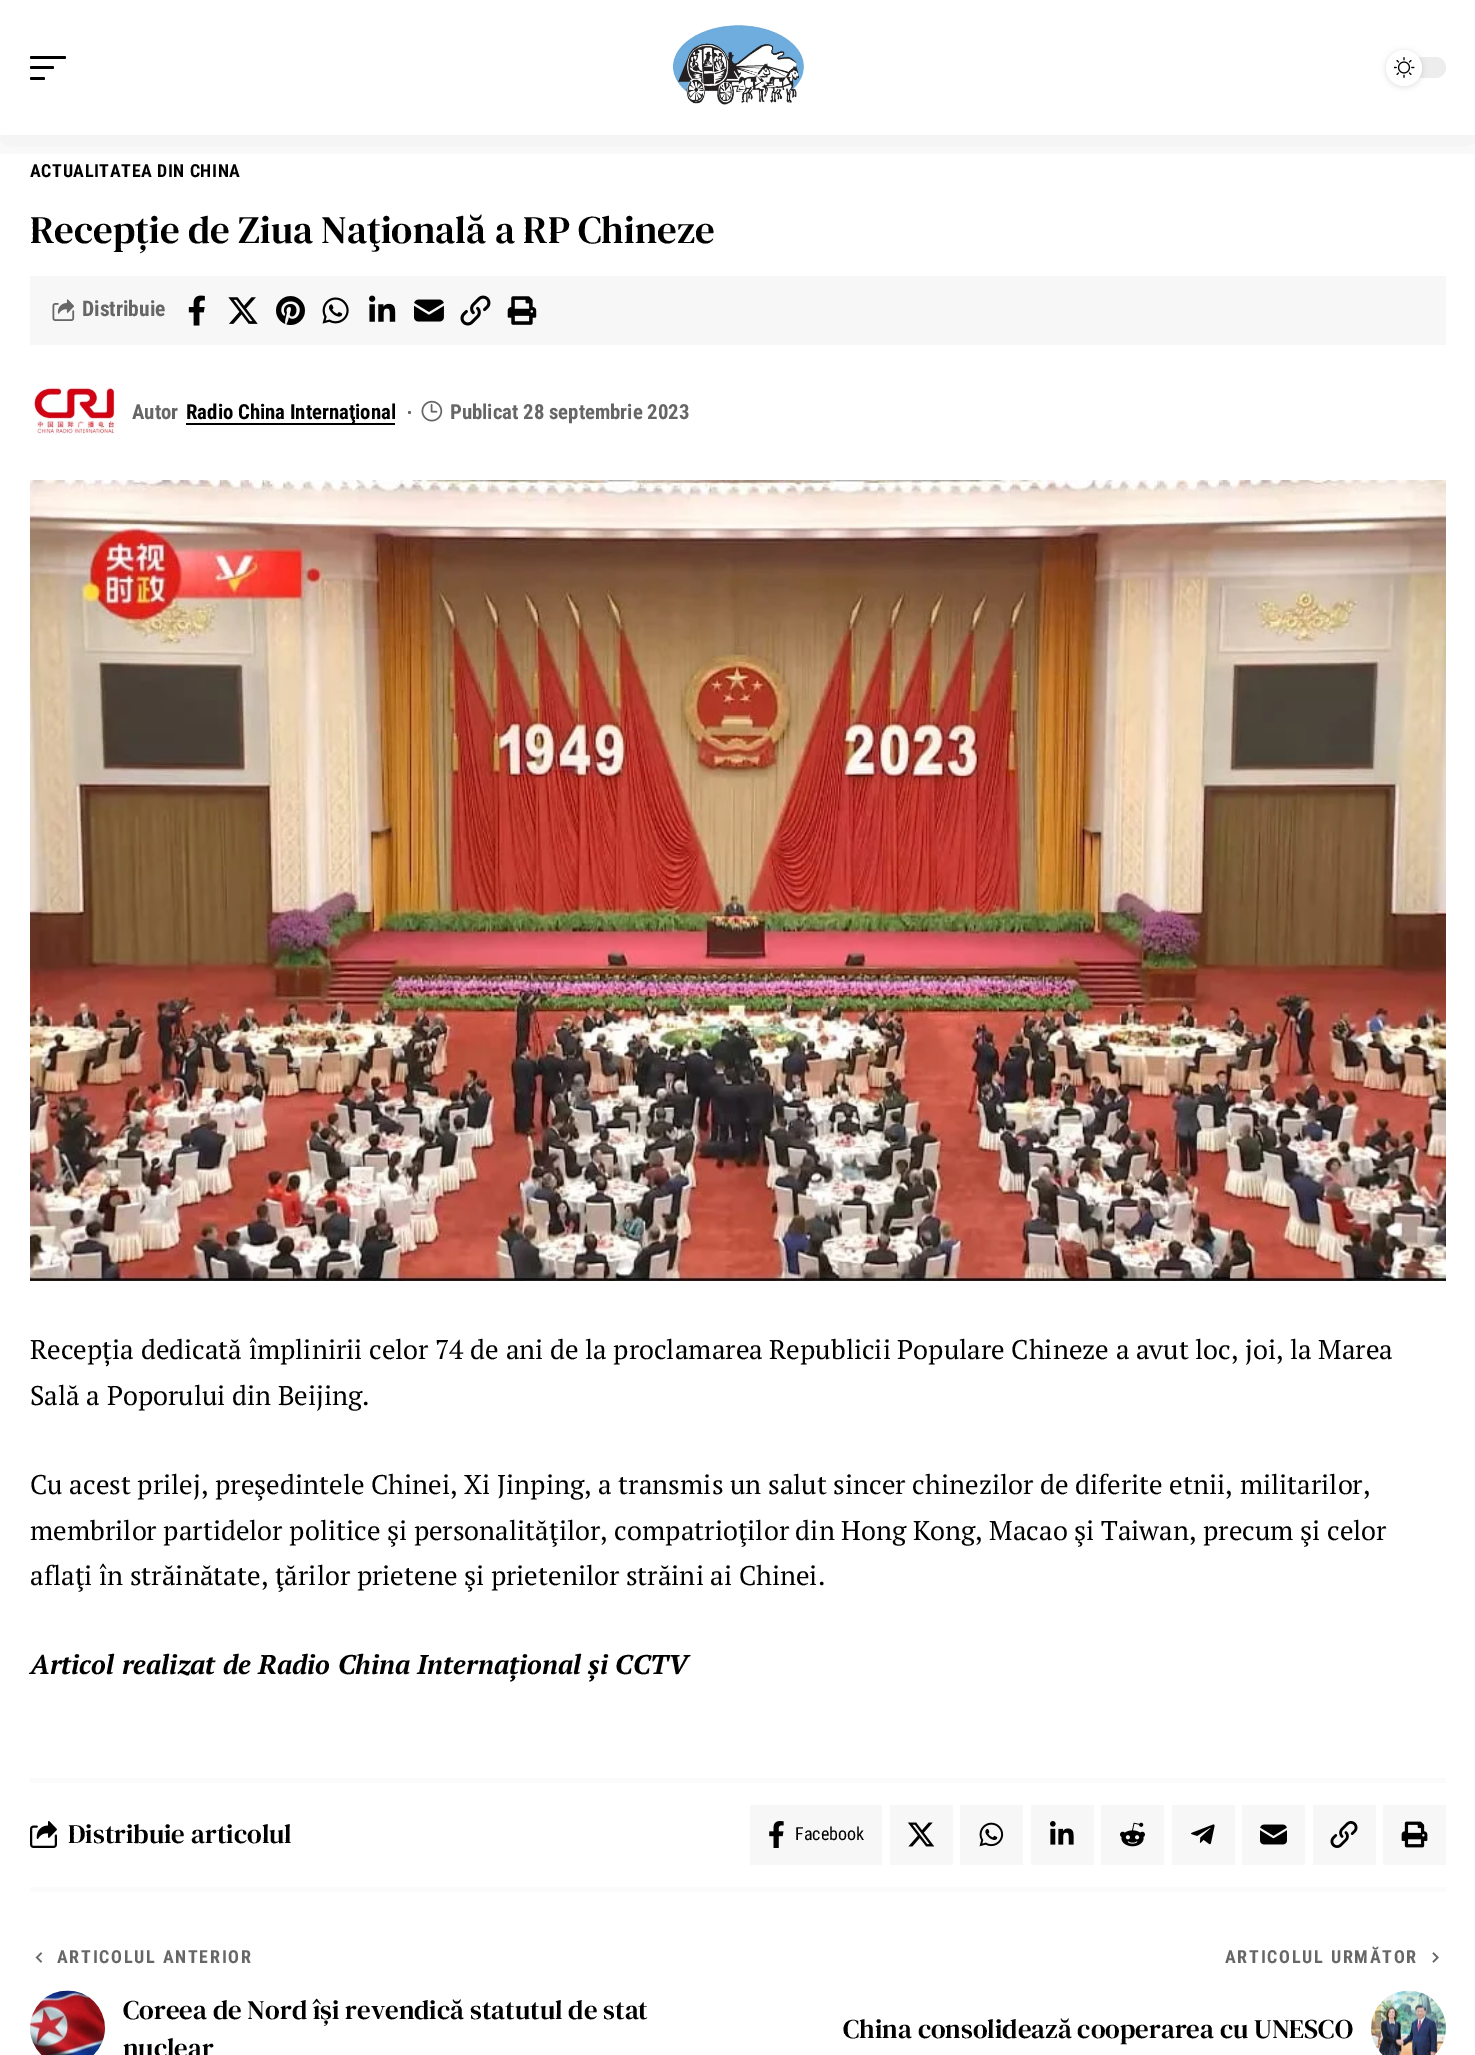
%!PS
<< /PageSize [1475 2055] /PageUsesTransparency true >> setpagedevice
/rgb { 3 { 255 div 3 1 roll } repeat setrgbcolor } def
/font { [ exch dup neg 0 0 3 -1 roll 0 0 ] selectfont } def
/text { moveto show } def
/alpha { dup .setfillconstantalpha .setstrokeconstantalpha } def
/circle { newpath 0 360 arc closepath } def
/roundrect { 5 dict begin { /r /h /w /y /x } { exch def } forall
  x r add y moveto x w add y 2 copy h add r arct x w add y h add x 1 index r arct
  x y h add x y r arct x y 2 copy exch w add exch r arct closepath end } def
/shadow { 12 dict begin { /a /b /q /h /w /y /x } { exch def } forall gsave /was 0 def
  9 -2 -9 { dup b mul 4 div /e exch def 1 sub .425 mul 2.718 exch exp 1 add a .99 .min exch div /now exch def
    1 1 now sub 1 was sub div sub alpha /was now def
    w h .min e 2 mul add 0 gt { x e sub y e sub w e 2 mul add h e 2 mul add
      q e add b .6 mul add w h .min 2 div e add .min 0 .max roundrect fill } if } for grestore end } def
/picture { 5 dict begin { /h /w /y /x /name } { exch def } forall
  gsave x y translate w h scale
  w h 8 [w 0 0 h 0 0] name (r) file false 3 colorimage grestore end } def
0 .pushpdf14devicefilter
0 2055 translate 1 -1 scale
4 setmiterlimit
255 255 255 rgb
0 0 1475 2055 rectfill
gsave
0 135 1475 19 rectclip
0 0 0 rgb
0 6 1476 135 0 22.5 0.07 shadow
grestore
0 0 0 rgb
30 56 36 3 1.5 roundrect fill
30 66 24 3 1.5 roundrect fill
30 77 15 3 1.5 roundrect fill
(img_01.rgb) 672 25 133 80 picture
237 237 237 rgb
1386 57 60 21 10.5 roundrect fill
0 0 0 rgb
1386 51 36 36 18 3 0.12 shadow
255 255 255 rgb
1404 68 18 circle fill
(img_02.rgb) 1394 57 21 21 picture
247 247 247 rgb
30 276 1416 69 rectfill
(img_03.rgb) 52 299 23 22 picture
(img_04.rgb) 188 295 17 31 picture
(img_05.rgb) 228 297 30 27 picture
(img_06.rgb) 276 296 29 29 picture
(img_07.rgb) 322 297 27 27 picture
(img_08.rgb) 369 295 27 27 picture
(img_09.rgb) 414 299 30 23 picture
(img_10.rgb) 460 295 31 31 picture
(img_11.rgb) 507 296 30 29 picture
(img_12.rgb) 34 386 82 49 picture
0 0 0 rgb
186 423 209 2 rectfill
102 102 102 rgb
409.5 412.5 1.5 circle fill
(img_13.rgb) 421 400 22 22 picture
(img_14.rgb) 30 480 1416 801 picture
251 251 251 rgb
30 1778 1416 5 rectfill
(img_15.rgb) 30 1821 27 27 picture
247 247 247 rgb
750 1805 132 60 rectfill
(img_16.rgb) 769 1821 15 27 picture
890 1805 63 60 rectfill
(img_17.rgb) 907 1822 28 25 picture
960 1805 63 60 rectfill
(img_18.rgb) 979 1822 25 25 picture
1031 1805 63 60 rectfill
(img_19.rgb) 1050 1821 24 24 picture
1101 1805 63 60 rectfill
(img_20.rgb) 1120 1822 25 25 picture
1172 1805 63 60 rectfill
(img_21.rgb) 1191 1824 24 21 picture
1242 1805 63 60 rectfill
(img_22.rgb) 1260 1824 27 21 picture
1313 1805 63 60 rectfill
(img_23.rgb) 1330 1821 28 27 picture
1383 1805 63 60 rectfill
(img_24.rgb) 1401 1821 27 27 picture
251 251 251 rgb
30 1887 1416 5 rectfill
(img_25.rgb) 35 1952 8 11 picture
(img_26.rgb) 30 1990 75 65 picture
(img_27.rgb) 1432 1952 7 11 picture
(img_28.rgb) 1371 1990 75 65 picture
/RobotoCondensed-Bold 18 font
0 0 0 rgb
30 177 moveto 0.6 0 (ACTUALITATEA DIN CHINA) ashow
/DMSerifText-Regular 39 font
(Recepție de Ziua Naţională a RP Chineze) 30 243 text
/RobotoCondensed-Bold 21.5 font
102 102 102 rgb
(Distribuie) 82 316 text
/RobotoCondensed-Bold 20.75 font
(Autor) 132 419 text
0 0 0 rgb
(Radio China Internaţional) 186 419 text
102 102 102 rgb
(Publicat 28 septembrie 2023) 450 419 text
/PTSerif-Regular 27 font
0 0 0 rgb
(Recepția dedicată împlinirii celor 74 de ani de la proclamarea Republicii Populare Chineze a avut loc, joi, la Marea) 30 1359 text
(Sală a Poporului din Beijing.) 30 1405 text
(Cu acest prilej, preşedintele Chinei, Xi Jinping, a transmis un salut sincer chinezilor de diferite etnii, militarilor,) 30 1494 text
(membrilor partidelor politice şi personalităţilor, compatrioţilor din Hong Kong, Macao şi Taiwan, precum şi celor) 30 1540 text
(aflaţi în străinătate, ţărilor prietene şi prietenilor străini ai Chinei.) 30 1585 text
/PTSerif-BoldItalic 27 font
(Articol realizat de Radio China Internațional și CCTV) 30 1674 text
/DMSerifText-Regular 27 font
(Distribuie articolul) 68 1843 text
/RobotoCondensed-Regular 18 font
(Facebook) 795 1840 text
/RobotoCondensed-Bold 18 font
102 102 102 rgb
57 1963 moveto 1.75 0 (ARTICOLUL ANTERIOR) ashow
/DMSerifText-Regular 27 font
0 0 0 rgb
(Coreea de Nord își revendică statutul de stat) 123 2019 text
(nuclear) 123 2057 text
/RobotoCondensed-Bold 18 font
102 102 102 rgb
1225 1963 moveto 1.75 0 (ARTICOLUL URMĂTOR) ashow
/DMSerifText-Regular 27 font
0 0 0 rgb
(China consolidează cooperarea cu UNESCO) 843 2038 text
.poppdf14devicefilter showpage
